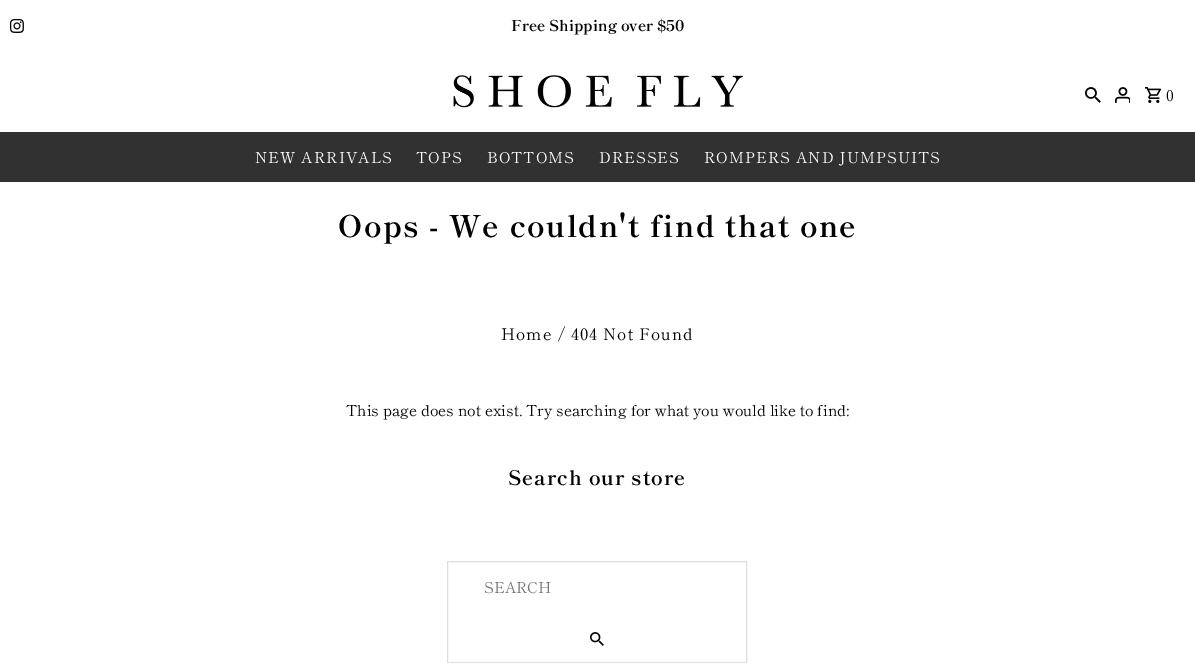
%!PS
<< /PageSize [1195 663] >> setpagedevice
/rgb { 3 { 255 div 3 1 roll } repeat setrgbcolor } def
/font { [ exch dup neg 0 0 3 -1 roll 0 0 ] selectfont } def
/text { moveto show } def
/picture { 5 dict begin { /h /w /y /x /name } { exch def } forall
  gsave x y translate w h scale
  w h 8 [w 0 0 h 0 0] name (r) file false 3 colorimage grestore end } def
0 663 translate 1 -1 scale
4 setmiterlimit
255 255 255 rgb
0 0 1195 663 rectfill
(img_01.rgb) 10 19 14 14 picture
(img_02.rgb) 453 75 290 33 picture
(img_03.rgb) 1085 87 16 16 picture
(img_04.rgb) 1115 87 15 16 picture
(img_05.rgb) 1145 87 16 16 picture
49 49 49 rgb
0 132 1195 50 rectfill
221 221 221 rgb
447.5 561.5 299 101 rectstroke
(img_06.rgb) 590 632 14 14 picture
/ShipporiMincho-Bold 15 font
0 0 0 rgb
(Free Shipping over $50) 511 31 text
/ShipporiMincho-Regular 15 font
1166 101 moveto 1 0 (0) ashow
255 255 255 rgb
255 163 moveto 1 0 (NEW ARRIVALS) ashow
416 163 moveto 1 0 (TOPS) ashow
487 163 moveto 1 0 (BOTTOMS) ashow
599 163 moveto 1 0 (DRESSES) ashow
704 163 moveto 1 0 (ROMPERS AND JUMPSUITS) ashow
/ShipporiMincho-Bold 30 font
0 0 0 rgb
338 237 moveto 1.5 0 (Oops - We couldn't find that one) ashow
/ShipporiMincho-Regular 16 font
501 340 moveto 1 0 (Home / 404 Not Found) ashow
/ShipporiMincho-Regular 15 font
(This page does not exist. Try searching for what you would like to find:) 346 416 text
/ShipporiMincho-Bold 20 font
508 485 moveto 1 0 (Search our store) ashow
/ShipporiMincho-Regular 15 font
117 117 117 rgb
(SEARCH) 484 593 text
showpage
